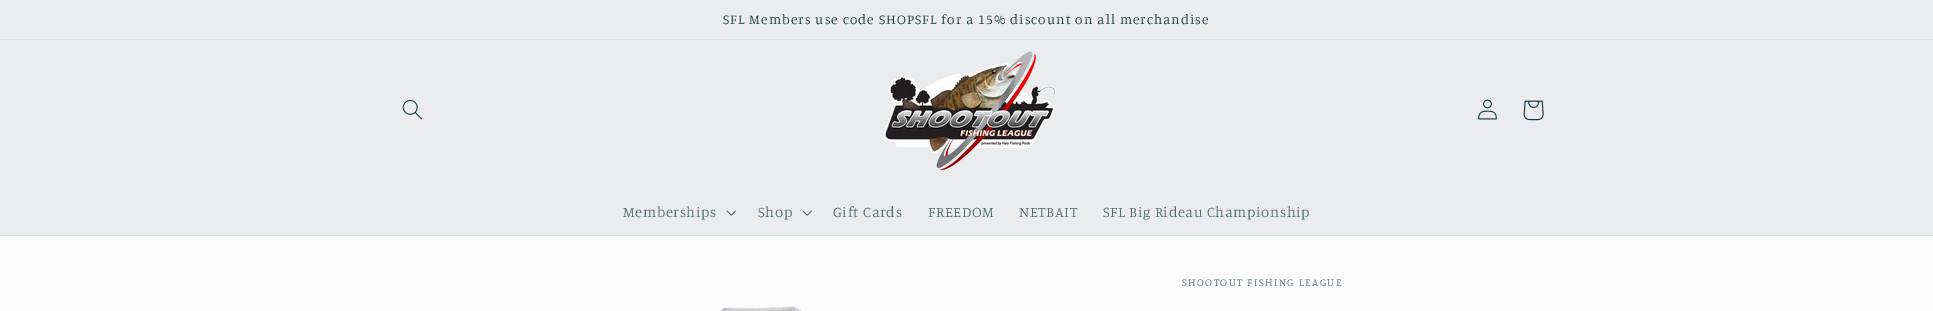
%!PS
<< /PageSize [1933 311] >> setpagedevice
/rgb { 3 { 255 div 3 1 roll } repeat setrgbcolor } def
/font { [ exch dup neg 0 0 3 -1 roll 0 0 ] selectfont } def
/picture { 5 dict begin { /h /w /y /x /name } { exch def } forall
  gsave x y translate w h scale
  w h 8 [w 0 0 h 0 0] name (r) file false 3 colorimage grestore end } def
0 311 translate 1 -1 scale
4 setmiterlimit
252 252 252 rgb
0 0 1933 311 rectfill
235 236 237 rgb
0 0 1933 39 rectfill
217 222 224 rgb
0 39 1933 1 rectfill
235 236 237 rgb
0 40 1933 195 rectfill
217 222 224 rgb
0 235 1933 1 rectfill
(img_01.rgb) 402 99 20 21 picture
(img_02.rgb) 883 51 173 120 picture
(img_03.rgb) 1478 99 19 21 picture
(img_04.rgb) 1523 100 21 21 picture
(img_05.rgb) 726 210 10 6 picture
(img_05.rgb) 802 210 10 6 picture
(img_06.rgb) 719 306 83 5 picture
/Manuale-Light 13.65 font
16 57 72 rgb
723 24 moveto 1.05 0 (SFL Members use code SHOPSFL for a 15% discount on all merchandise) ashow
/Manuale-Light 14.75 font
75 106 117 rgb
623 217 moveto 0.6 0 (Memberships) ashow
758 217 moveto 0.6 0 (Shop) ashow
833 217 moveto 0.6 0 (Gift Cards) ashow
928 217 moveto 0.6 0 (FREEDOM) ashow
1019 217 moveto 0.6 0 (NETBAIT) ashow
1103 217 moveto 0.6 0 (SFL Big Rideau Championship) ashow
/Manuale-Light 10.5 font
1182 286 moveto 1.4 0 (SHOOTOUT FISHING LEAGUE) ashow
showpage
